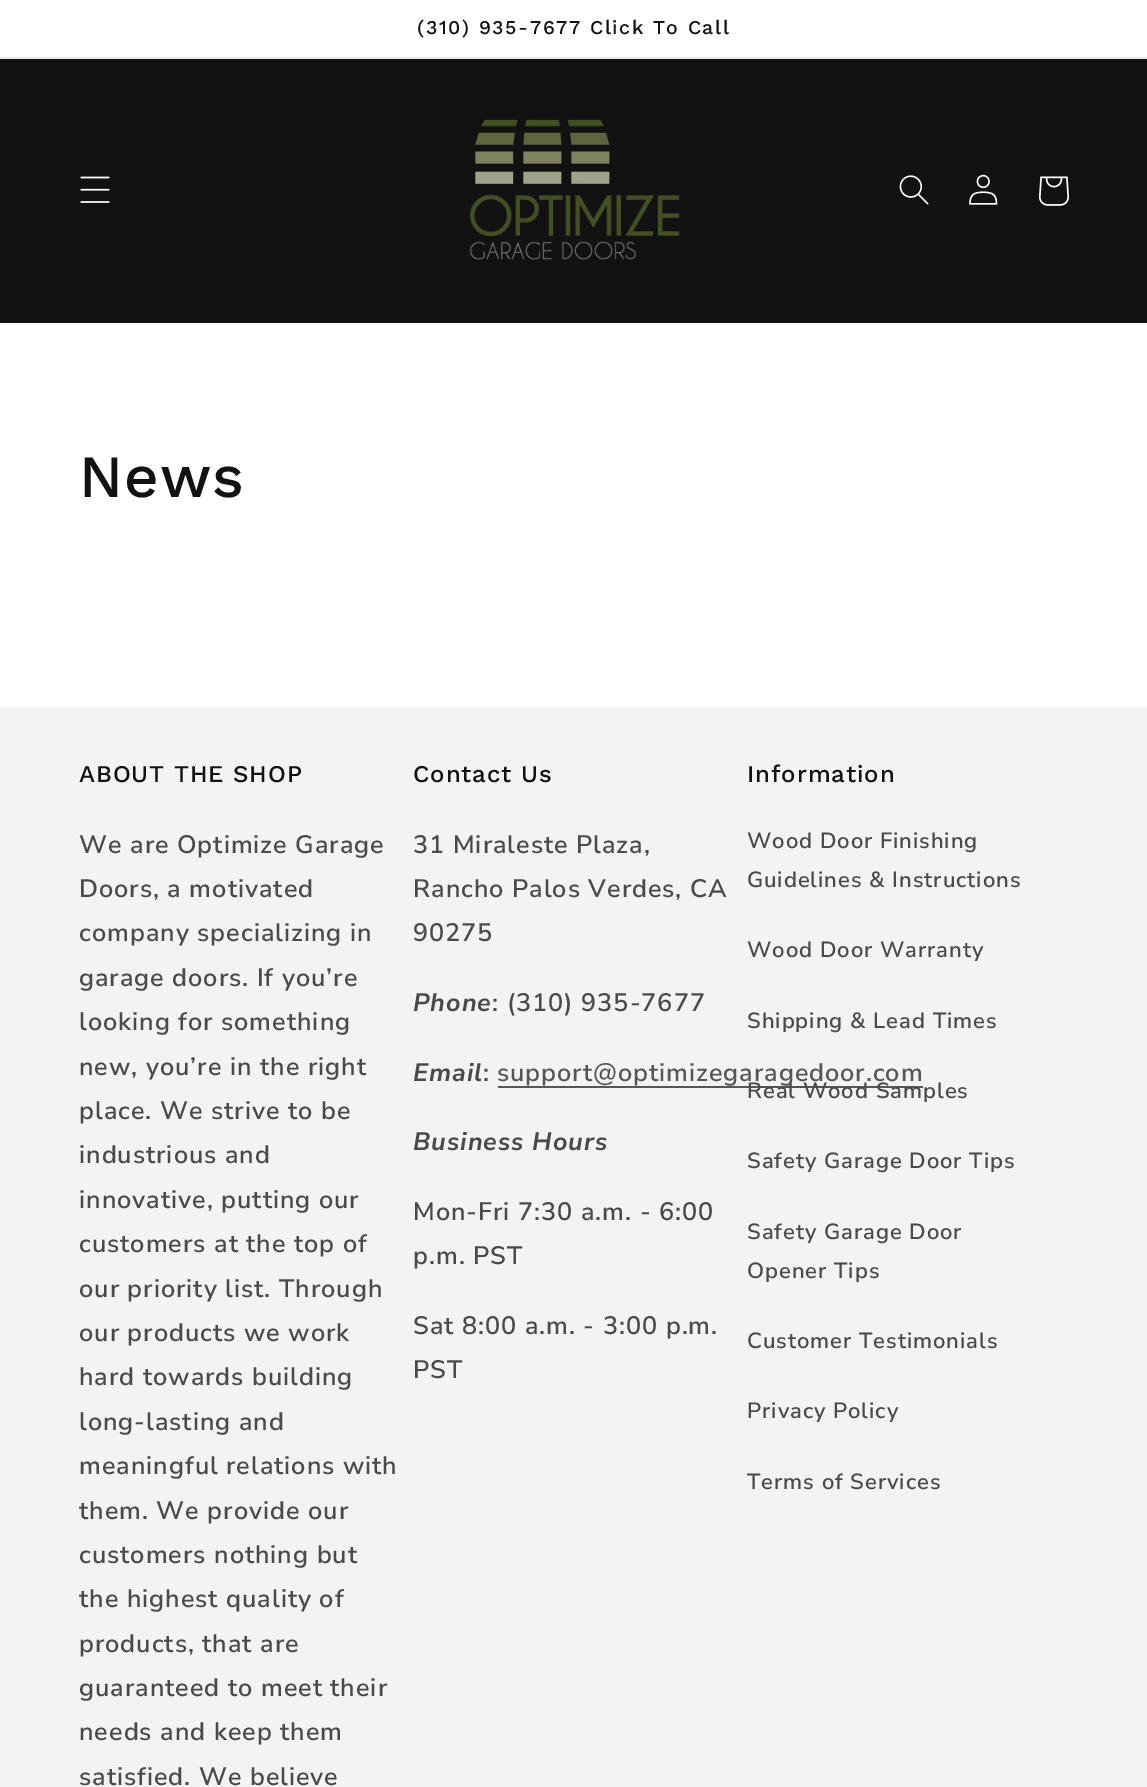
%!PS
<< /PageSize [1147 1787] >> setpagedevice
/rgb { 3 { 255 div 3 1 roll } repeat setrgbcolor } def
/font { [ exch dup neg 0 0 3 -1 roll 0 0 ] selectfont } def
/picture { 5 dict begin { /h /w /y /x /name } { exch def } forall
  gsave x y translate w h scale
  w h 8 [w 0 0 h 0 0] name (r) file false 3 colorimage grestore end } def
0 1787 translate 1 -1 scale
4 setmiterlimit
255 255 255 rgb
0 0 1147 1787 rectfill
236 236 236 rgb
0 57 1147 2 rectfill
18 18 18 rgb
0 59 1147 264 rectfill
(img_01.rgb) 80 176 30 27 picture
(img_02.rgb) 469 119 211 141 picture
(img_03.rgb) 899 175 30 30 picture
(img_04.rgb) 969 174 29 31 picture
(img_05.rgb) 1039 176 31 30 picture
243 243 243 rgb
0 707 1147 1080 rectfill
86 86 86 rgb
498 1086 425 2 rectfill
/WorkSans-Medium 19.5 font
18 18 18 rgb
417 34 moveto 1.6 0 (\(310\) 935-7677 Click To Call) ashow
/WorkSans-Medium 60 font
79 497 moveto 0.9 0 (News) ashow
/WorkSans-Medium 24 font
79 782 moveto 0.9 0 (ABOUT THE SHOP) ashow
/NunitoSans-SemiBold 25.25 font
74 74 74 rgb
79 853 moveto 0.95 0 (We are Optimize Garage) ashow
79 897 moveto 0.95 0 (Doors, a motivated) ashow
79 941 moveto 0.95 0 (company specializing in) ashow
79 986 moveto 0.95 0 (garage doors. If you’re) ashow
79 1030 moveto 0.95 0 (looking for something) ashow
79 1075 moveto 0.95 0 (new, you’re in the right) ashow
79 1119 moveto 0.95 0 (place. We strive to be) ashow
79 1163 moveto 0.95 0 (industrious and) ashow
79 1208 moveto 0.95 0 (innovative, putting our) ashow
79 1252 moveto 0.95 0 (customers at the top of) ashow
79 1297 moveto 0.95 0 (our priority list. Through) ashow
79 1341 moveto 0.95 0 (our products we work) ashow
79 1385 moveto 0.95 0 (hard towards building) ashow
79 1430 moveto 0.95 0 (long-lasting and) ashow
79 1474 moveto 0.95 0 (meaningful relations with) ashow
79 1519 moveto 0.95 0 (them. We provide our) ashow
79 1563 moveto 0.95 0 (customers nothing but) ashow
79 1607 moveto 0.95 0 (the highest quality of) ashow
79 1652 moveto 0.95 0 (products, that are) ashow
79 1696 moveto 0.95 0 (guaranteed to meet their) ashow
79 1740 moveto 0.95 0 (needs and keep them) ashow
79 1785 moveto 0.95 0 (satisfied. We believe) ashow
/WorkSans-Medium 24 font
18 18 18 rgb
747 782 moveto 0.9 0 (Information) ashow
/NunitoSans-SemiBold 22 font
74 74 74 rgb
747 848 moveto 0.95 0 (Wood Door Finishing) ashow
747 887 moveto 0.95 0 (Guidelines & Instructions) ashow
747 957 moveto 0.95 0 (Wood Door Warranty) ashow
747 1028 moveto 0.95 0 (Shipping & Lead Times) ashow
747 1098 moveto 0.95 0 (Real Wood Samples) ashow
747 1168 moveto 0.95 0 (Safety Garage Door Tips) ashow
747 1239 moveto 0.95 0 (Safety Garage Door) ashow
747 1278 moveto 0.95 0 (Opener Tips) ashow
747 1348 moveto 0.95 0 (Customer Testimonials) ashow
747 1418 moveto 0.95 0 (Privacy Policy) ashow
747 1489 moveto 0.95 0 (Terms of Services) ashow
/WorkSans-Medium 24 font
18 18 18 rgb
413 782 moveto 0.9 0 (Contact Us) ashow
/NunitoSans-SemiBold 25.25 font
74 74 74 rgb
413 853 moveto 0.95 0 (31 Miraleste Plaza,) ashow
413 897 moveto 0.95 0 (Rancho Palos Verdes, CA) ashow
413 941 moveto 0.95 0 (90275) ashow
/NunitoSans-BoldItalic 25.25 font
413 1011 moveto 0.95 0 (Phone) ashow
/NunitoSans-SemiBold 25.25 font
492 1011 moveto 0.95 0 (: \(310\) 935-7677) ashow
/NunitoSans-BoldItalic 25.25 font
413 1081 moveto 0.95 0 (Email) ashow
/NunitoSans-SemiBold 25.25 font
483 1081 moveto 0.95 0 (:) ashow
86 86 86 rgb
497 1081 moveto 0.95 0 (support@optimizegaragedoor.com) ashow
/NunitoSans-BoldItalic 25.25 font
74 74 74 rgb
413 1150 moveto 0.95 0 (Business Hours) ashow
/NunitoSans-SemiBold 25.25 font
413 1220 moveto 0.95 0 (Mon-Fri 7:30 a.m. - 6:00) ashow
413 1264 moveto 0.95 0 (p.m. PST) ashow
413 1334 moveto 0.95 0 (Sat 8:00 a.m. - 3:00 p.m.) ashow
413 1378 moveto 0.95 0 (PST) ashow
showpage
